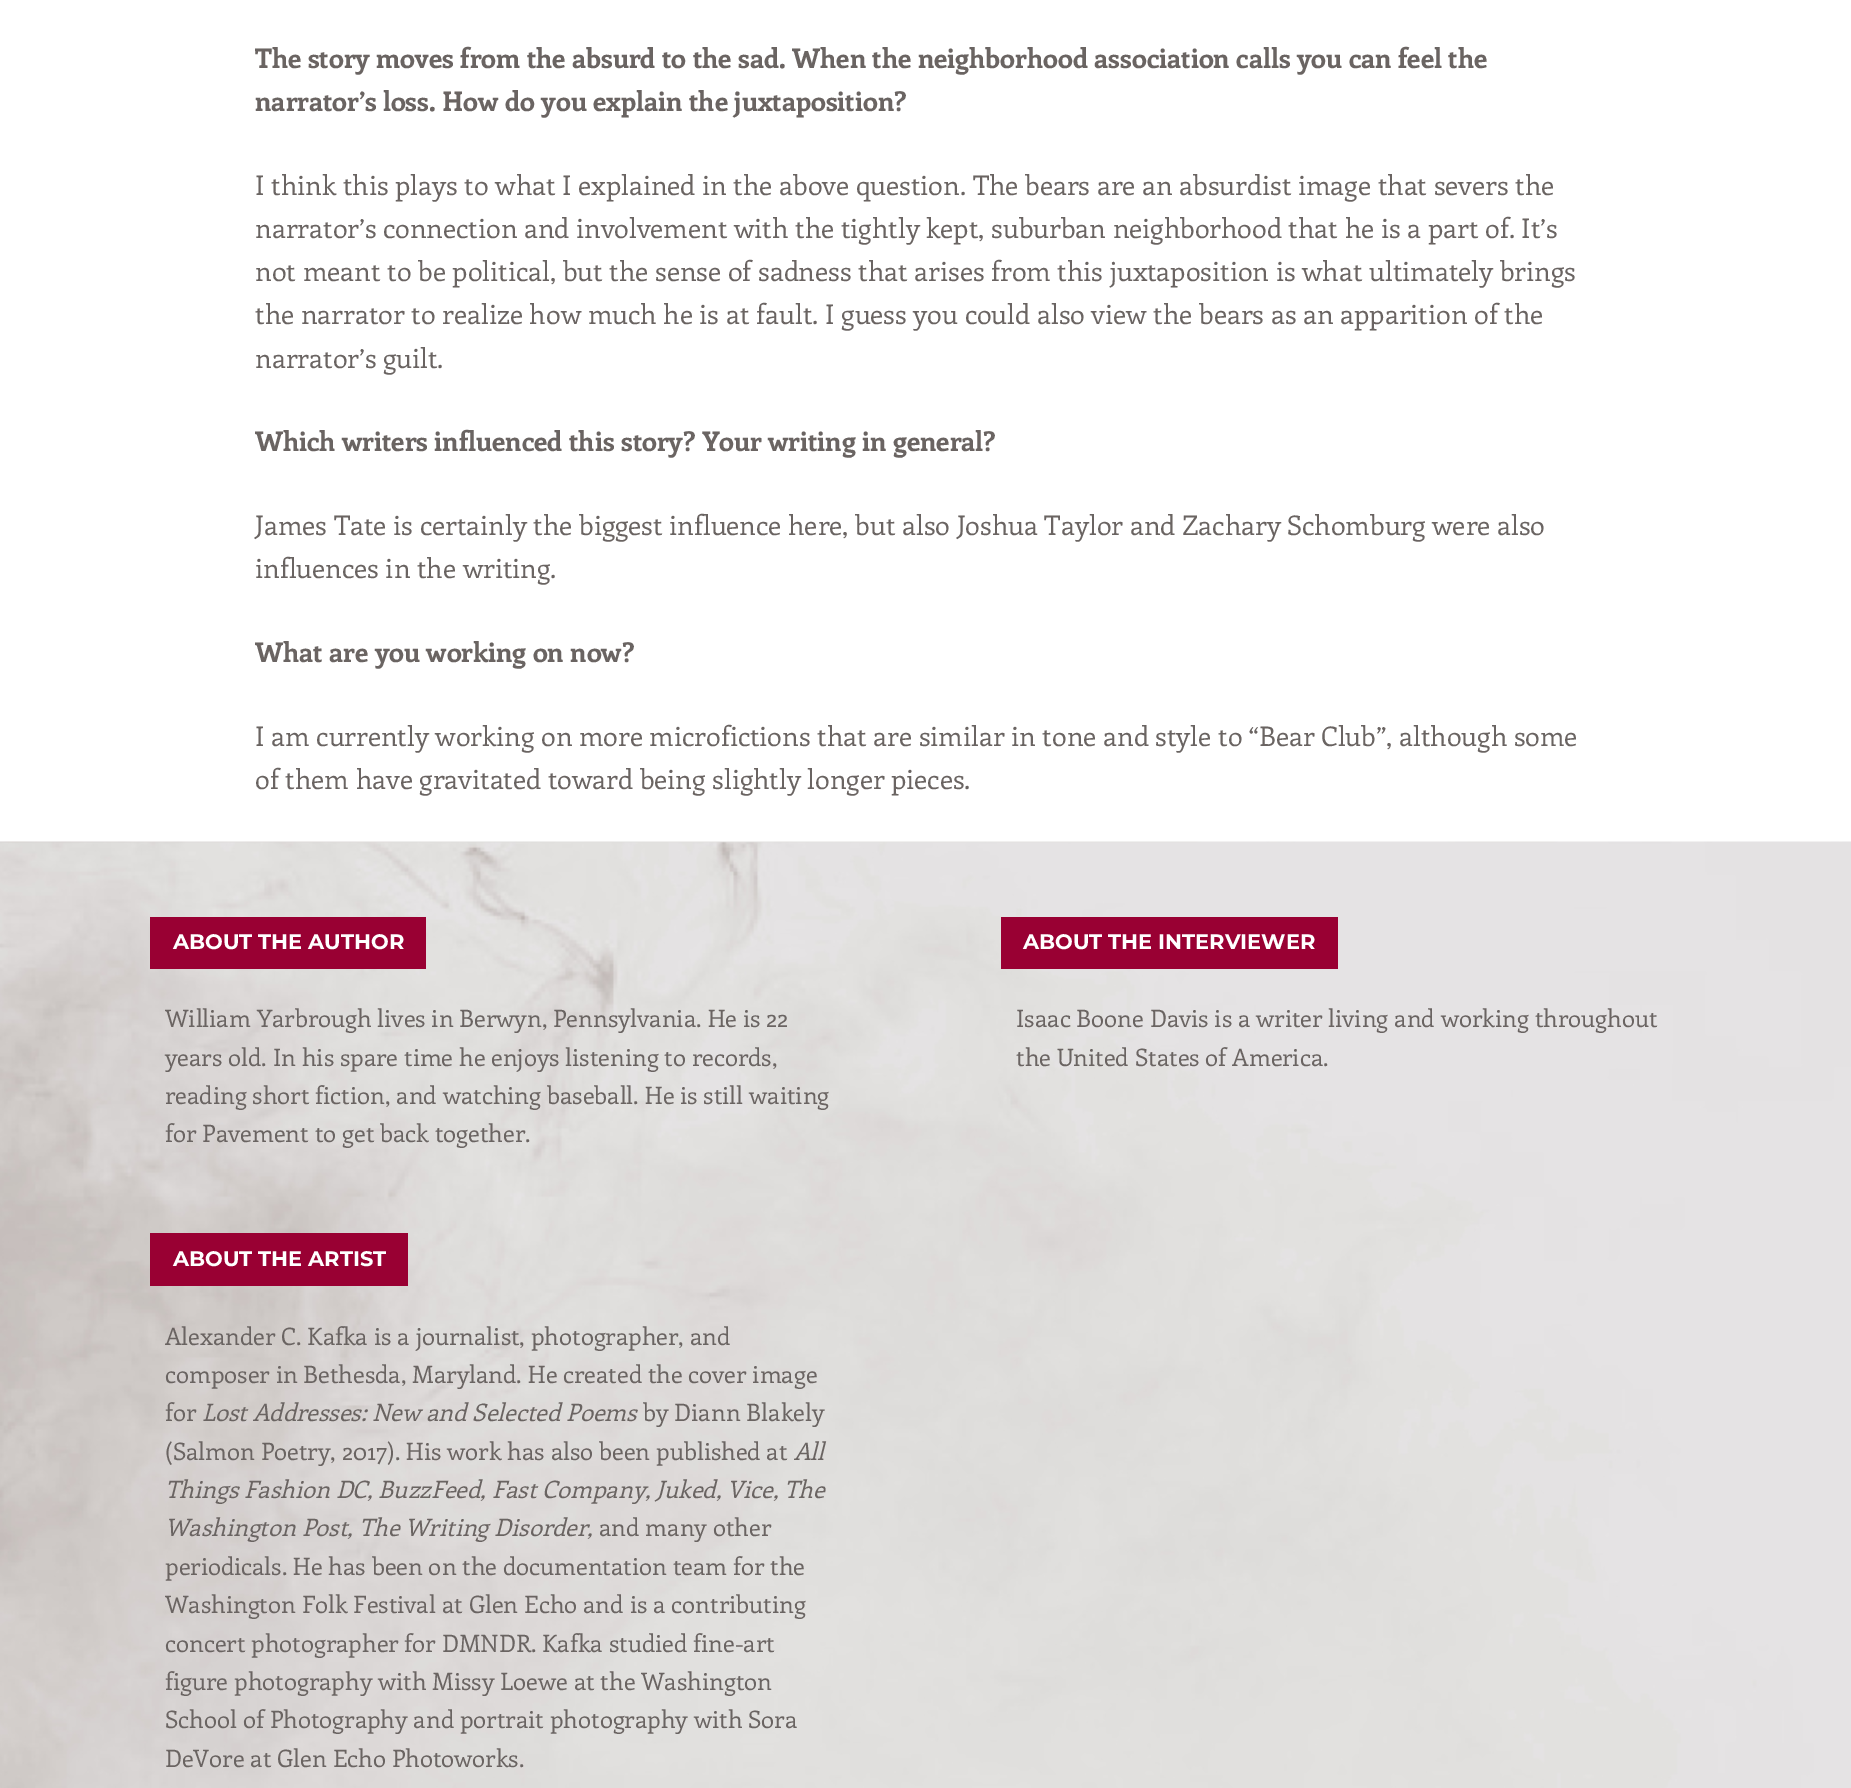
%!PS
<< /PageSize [1851 1788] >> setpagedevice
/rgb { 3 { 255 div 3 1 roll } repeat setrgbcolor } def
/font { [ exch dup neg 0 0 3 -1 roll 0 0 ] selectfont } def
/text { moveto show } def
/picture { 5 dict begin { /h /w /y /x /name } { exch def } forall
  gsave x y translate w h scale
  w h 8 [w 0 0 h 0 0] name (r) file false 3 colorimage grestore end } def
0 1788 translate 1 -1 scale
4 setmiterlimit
255 255 255 rgb
0 0 1851 1788 rectfill
(img_01.rgb) 0 841 1851 947 picture
153 0 51 rgb
150 917 276 52 rectfill
1001 917 337 52 rectfill
150 1233 258 53 rectfill
/Enriqueta-Bold 27 font
106 100 98 rgb
(The story moves from the absurd to the sad. When the neighborhood association calls you can feel the) 255 68 text
(narrator’s loss. How do you explain the juxtaposition?) 255 111 text
/Enriqueta-Regular 27 font
(I think this plays to what I explained in the above question. The bears are an absurdist image that severs the) 255 195 text
(narrator’s connection and involvement with the tightly kept, suburban neighborhood that he is a part of. It’s) 255 238 text
(not meant to be political, but the sense of sadness that arises from this juxtaposition is what ultimately brings) 255 281 text
(the narrator to realize how much he is at fault. I guess you could also view the bears as an apparition of the) 255 324 text
(narrator’s guilt.) 255 368 text
/Enriqueta-Bold 27 font
(Which writers influenced this story? Your writing in general?) 255 451 text
/Enriqueta-Regular 27 font
(James Tate is certainly the biggest influence here, but also Joshua Taylor and Zachary Schomburg were also) 255 535 text
(influences in the writing.) 255 578 text
/Enriqueta-Bold 27 font
(What are you working on now?) 255 662 text
/Enriqueta-Regular 27 font
(I am currently working on more microfictions that are similar in tone and style to “Bear Club”, although some) 255 746 text
(of them have gravitated toward being slightly longer pieces.) 255 789 text
/Montserrat-Bold 21 font
255 255 255 rgb
(ABOUT THE AUTHOR) 173 949 text
/Enriqueta-Regular 24 font
106 100 98 rgb
(William Yarbrough lives in Berwyn, Pennsylvania. He is 22) 165 1027 text
(years old. In his spare time he enjoys listening to records,) 165 1066 text
(reading short fiction, and watching baseball. He is still waiting) 165 1104 text
(for Pavement to get back together.) 165 1142 text
/Montserrat-Bold 21 font
255 255 255 rgb
(ABOUT THE INTERVIEWER) 1023 949 text
/Enriqueta-Regular 24 font
106 100 98 rgb
(Isaac Boone Davis is a writer living and working throughout) 1016 1027 text
(the United States of America.) 1016 1066 text
/Montserrat-Bold 21 font
255 255 255 rgb
(ABOUT THE ARTIST) 173 1266 text
/Enriqueta-Regular 24 font
106 100 98 rgb
(Alexander C. Kafka is a journalist, photographer, and) 165 1345 text
(composer in Bethesda, Maryland. He created the cover image) 165 1383 text
(for) 165 1421 text
/Enriqueta-Italic 24 font
(Lost Addresses: New and Selected Poems) 202 1421 text
/Enriqueta-Regular 24 font
(by Diann Blakely) 643 1421 text
(\(Salmon Poetry, 2017\). His work has also been published at) 165 1460 text
/Enriqueta-Italic 24 font
(All) 794 1460 text
(Things Fashion DC, BuzzFeed, Fast Company, Juked, Vice, The) 165 1498 text
(Washington Post, The Writing Disorder,) 165 1536 text
/Enriqueta-Regular 24 font
(and many other) 599 1536 text
(periodicals. He has been on the documentation team for the) 165 1575 text
(Washington Folk Festival at Glen Echo and is a contributing) 165 1613 text
(concert photographer for DMNDR. Kafka studied fine-art) 165 1652 text
(figure photography with Missy Loewe at the Washington) 165 1690 text
(School of Photography and portrait photography with Sora) 165 1728 text
(DeVore at Glen Echo Photoworks.) 165 1767 text
showpage
